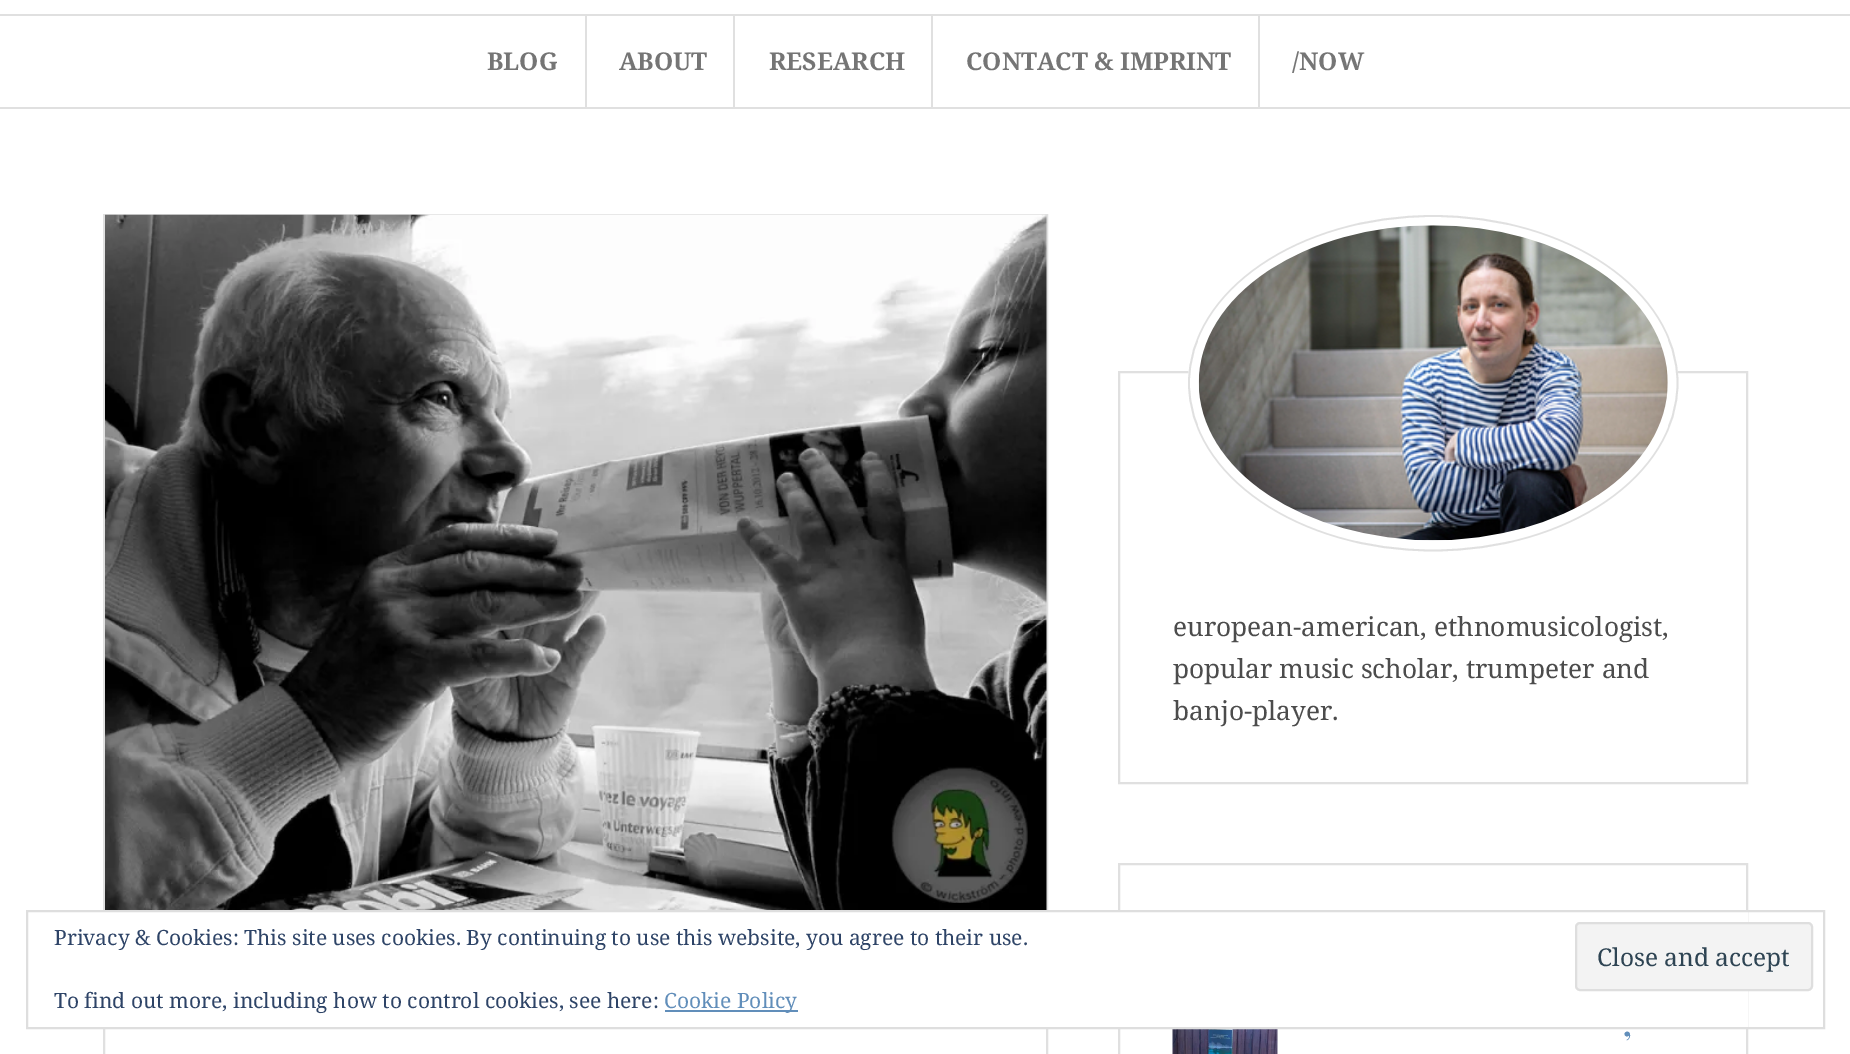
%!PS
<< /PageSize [1850 1054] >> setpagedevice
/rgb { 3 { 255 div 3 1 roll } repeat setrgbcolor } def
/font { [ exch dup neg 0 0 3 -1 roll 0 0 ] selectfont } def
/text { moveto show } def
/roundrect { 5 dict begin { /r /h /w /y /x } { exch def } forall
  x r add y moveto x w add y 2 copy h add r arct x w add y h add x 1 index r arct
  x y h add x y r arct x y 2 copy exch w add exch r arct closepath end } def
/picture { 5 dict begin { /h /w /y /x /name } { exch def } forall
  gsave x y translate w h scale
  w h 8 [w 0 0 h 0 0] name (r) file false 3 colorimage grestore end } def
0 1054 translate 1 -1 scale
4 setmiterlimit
255 255 255 rgb
0 0 1850 1054 rectfill
224 224 224 rgb
0 14 1850 2 rectfill
0 107 1850 2 rectfill
585 16 2 91 rectfill
733 16 2 91 rectfill
931 16 2 91 rectfill
1258 16 2 91 rectfill
2 setlinewidth
104 215 943 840 rectstroke
(img_01.rgb) 105 214 942 696 picture
1119 372 628 411 rectstroke
255 255 255 rgb
1433 215 moveto 135.5 0 245 75 245 168 rcurveto 0 93 -109.5 168 -245 168 rcurveto -135.5 0 -245 -75 -245 -168 rcurveto 0 -93 109.5 -168 245 -168 rcurveto closepath fill
224 224 224 rgb
1.8 setlinewidth
1433 216 moveto 135 0 244.5 75 244.5 167 rcurveto 0 92.5 -109.5 167.5 -244.5 167.5 rcurveto -134.5 0 -244 -75 -244 -167.5 rcurveto 0 -92 109.5 -167 244 -167 rcurveto closepath stroke
(img_02.rgb) 1198 225 470 316 picture
2 setlinewidth
1119 864 628 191 rectstroke
(img_03.rgb) 1172 1029 106 25 picture
255 255 255 rgb
103 912 1645 115 rectfill
222 222 222 rgb
27 911 1797 117 rectstroke
243 243 243 rgb
1576 923 236 67 4 roundrect gsave fill grestore
222 222 222 rgb
stroke
97 142 186 rgb
665 1010 133 2 rectfill
/NotoSerif-Bold 24.5 font
117 117 117 rgb
(BLOG) 487 70 text
(ABOUT) 619 70 text
(RESEARCH) 769 70 text
(CONTACT & IMPRINT) 966 70 text
(/NOW) 1292 70 text
/NotoSerif-Regular 26.25 font
76 76 76 rgb
(european-american, ethnomusicologist,) 1173 636 text
(popular music scholar, trumpeter and) 1173 678 text
(banjo-player.) 1173 720 text
/PlayfairDisplay-Bold 32 font
97 142 186 rgb
(,) 1623 1036 text
/NotoSerif-Regular 21 font
46 68 103 rgb
(Privacy & Cookies: This site uses cookies. By continuing to use this website, you agree to their use.) 54 945 text
/NotoSerif-Regular 24.5 font
46 68 83 rgb
(Close and accept) 1597 966 text
/NotoSerif-Regular 21 font
46 68 103 rgb
(To find out more, including how to control cookies, see here:) 54 1008 text
97 142 186 rgb
(Cookie Policy) 664 1008 text
showpage
